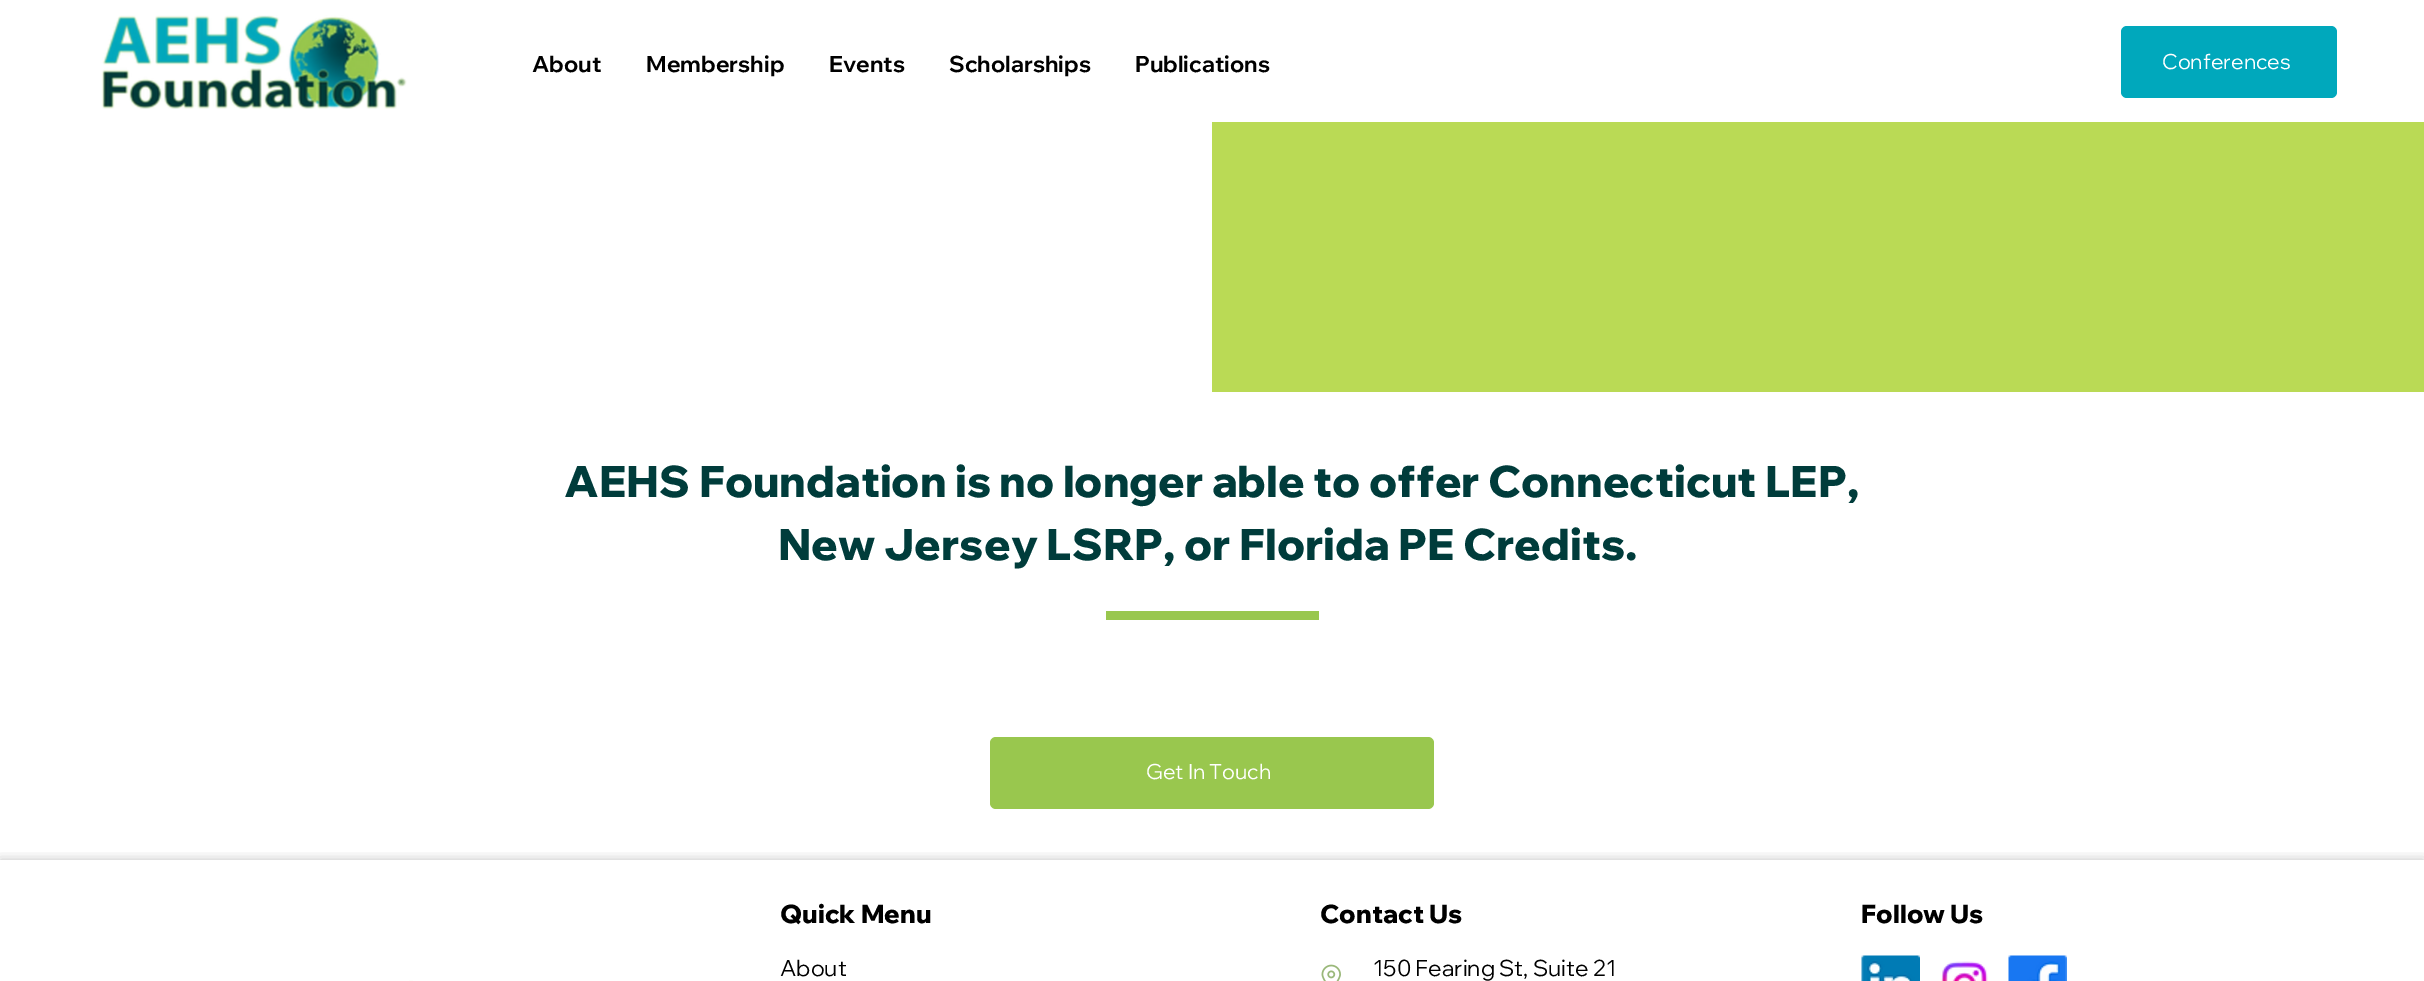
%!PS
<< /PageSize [2424 981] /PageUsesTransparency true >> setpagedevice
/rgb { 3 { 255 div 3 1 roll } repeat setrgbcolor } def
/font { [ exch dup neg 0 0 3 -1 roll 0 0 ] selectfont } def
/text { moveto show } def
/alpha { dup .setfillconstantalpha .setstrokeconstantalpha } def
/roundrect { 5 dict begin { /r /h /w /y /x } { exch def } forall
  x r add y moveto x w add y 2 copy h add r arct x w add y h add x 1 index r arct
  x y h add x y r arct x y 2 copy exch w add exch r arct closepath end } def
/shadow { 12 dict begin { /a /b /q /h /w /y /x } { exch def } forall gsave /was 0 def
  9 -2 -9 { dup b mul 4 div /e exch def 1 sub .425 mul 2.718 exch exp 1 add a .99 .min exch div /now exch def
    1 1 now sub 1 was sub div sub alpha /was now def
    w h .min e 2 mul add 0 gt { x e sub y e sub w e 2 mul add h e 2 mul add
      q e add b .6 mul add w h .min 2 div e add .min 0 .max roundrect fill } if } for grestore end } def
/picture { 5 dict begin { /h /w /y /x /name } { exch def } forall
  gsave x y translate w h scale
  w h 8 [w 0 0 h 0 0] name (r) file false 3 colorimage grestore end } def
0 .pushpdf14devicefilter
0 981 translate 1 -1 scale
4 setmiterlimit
255 255 255 rgb
0 0 2424 981 rectfill
(img_01.rgb) 101 15 306 94 picture
0 168 188 rgb
2121 26 216 72 6 roundrect fill
186 218 85 rgb
1212 122 1212 270 rectfill
153 199 78 rgb
1106 611 213 9 rectfill
990 737 444 72 6 roundrect fill
gsave
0 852 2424 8 rectclip
0 0 0 rgb
0 860 2424 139 0 6 0.23 shadow
grestore
(img_02.rgb) 1321 964 20 17 picture
(img_03.rgb) 1861 955 59 26 picture
(img_04.rgb) 1941 961 47 20 picture
(img_05.rgb) 2008 955 59 26 picture
(img_06.rgb) 409 980 4 1 picture
/WixMadeforDisplay-Bold 22.5 font
0 0 0 rgb
(About) 532 72 text
(Membership) 646 72 text
(Events) 829 72 text
(Scholarships) 949 72 text
(Publications) 1135 72 text
/WixMadeforDisplay-Regular 21 font
255 255 255 rgb
(Conferences) 2162 69 text
/WixMadeforDisplay-ExtraBold 43.5 font
0 60 59 rgb
(AEHS Foundation is no longer able to offer Connecticut LEP,) 564 497 text
(New Jersey LSRP, or Florida PE Credits.) 778 560 text
/WixMadeforDisplay-Regular 21 font
255 255 255 rgb
(Get In Touch) 1146 779 text
/WixMadeforDisplay-ExtraBold 25.5 font
0 0 0 rgb
(Quick Menu) 780 923 text
/WixMadeforDisplay-Regular 22.5 font
(About) 780 976 text
/WixMadeforDisplay-ExtraBold 25.5 font
(Contact Us) 1320 923 text
/WixMadeforDisplay-Regular 22.5 font
(150 Fearing St, Suite 21) 1373 976 text
/WixMadeforDisplay-ExtraBold 25.5 font
(Follow Us) 1861 923 text
.poppdf14devicefilter showpage
